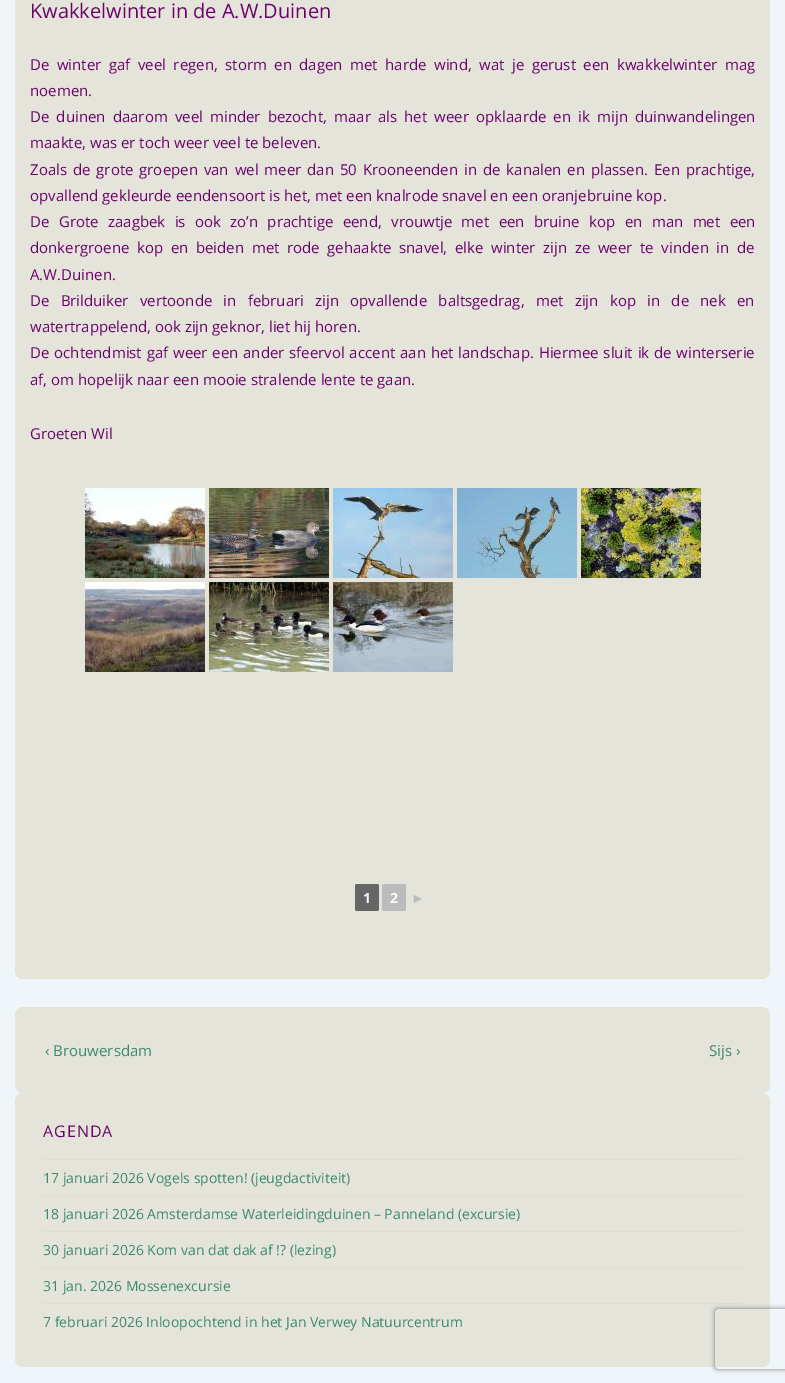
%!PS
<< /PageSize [785 1383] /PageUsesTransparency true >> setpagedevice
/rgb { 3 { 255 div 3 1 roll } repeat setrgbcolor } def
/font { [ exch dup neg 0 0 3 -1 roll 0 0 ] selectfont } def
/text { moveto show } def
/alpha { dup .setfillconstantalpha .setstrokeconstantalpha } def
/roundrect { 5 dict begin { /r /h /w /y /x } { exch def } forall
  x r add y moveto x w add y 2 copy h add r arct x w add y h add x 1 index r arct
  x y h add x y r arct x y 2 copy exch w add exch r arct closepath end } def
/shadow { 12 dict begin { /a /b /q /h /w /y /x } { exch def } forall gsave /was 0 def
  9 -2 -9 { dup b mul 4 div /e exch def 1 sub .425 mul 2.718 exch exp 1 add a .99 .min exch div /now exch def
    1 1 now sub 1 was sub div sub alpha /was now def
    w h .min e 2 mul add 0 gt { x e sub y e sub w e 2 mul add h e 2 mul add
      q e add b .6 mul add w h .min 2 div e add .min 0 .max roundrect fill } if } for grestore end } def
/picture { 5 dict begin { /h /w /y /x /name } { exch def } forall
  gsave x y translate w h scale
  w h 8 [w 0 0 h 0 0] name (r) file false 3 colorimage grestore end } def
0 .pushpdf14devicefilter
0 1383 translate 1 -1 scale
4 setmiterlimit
240 245 250 rgb
0 0 785 1383 rectfill
228 228 219 rgb
15 -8 755 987 8 roundrect fill
(img_01.rgb) 85 488 120 90 picture
(img_02.rgb) 209 488 120 90 picture
(img_03.rgb) 333 488 120 90 picture
(img_04.rgb) 457 488 120 90 picture
(img_05.rgb) 581 488 120 90 picture
(img_06.rgb) 85 582 120 90 picture
(img_07.rgb) 209 582 120 90 picture
(img_08.rgb) 333 582 120 90 picture
102 102 102 rgb
355 884 24 27 2 roundrect fill
187 187 187 rgb
382 884 24 27 2 roundrect fill
228 228 219 rgb
15 1007 755 86 8 roundrect fill
15 1093 755 274 8 roundrect fill
216 216 209 rgb
[1 1] 0 setdash
43 1159.5 moveto 699 0 rlineto stroke
43 1195.5 moveto 699 0 rlineto stroke
43 1231.5 moveto 699 0 rlineto stroke
43 1267.5 moveto 699 0 rlineto stroke
43 1303.5 moveto 699 0 rlineto stroke
gsave
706 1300 moveto 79 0 rlineto 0 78 rlineto -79 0 rlineto closepath 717 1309 moveto 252 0 rlineto 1 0 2 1 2 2 rcurveto 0 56 rlineto 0 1 -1 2 -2 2 rcurveto -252 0 rlineto -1 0 -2 -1 -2 -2 rcurveto 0 -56 rlineto 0 -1 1 -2 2 -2 rcurveto closepath eoclip newpath
128 128 128 rgb
715 1309 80 60 2 2.5 1 shadow
grestore
/OpenSans-Regular 20 font
107 3 105 rgb
(Kwakkelwinter in de A.W.Duinen) 30 18 text
/OpenSans-Regular 15 font
30 70 moveto 3.6 0 32 (De winter gaf veel regen, storm en dagen met harde wind, wat je gerust een kwakkelwinter mag) widthshow
(noemen.) 30 96 text
30 122 moveto 3.25 0 32 (De duinen daarom veel minder bezocht, maar als het weer opklaarde en ik mijn duinwandelingen) widthshow
(maakte, was er toch weer veel te beleven.) 30 148 text
30 175 moveto 2 0 32 (Zoals de grote groepen van wel meer dan 50 Krooneenden in de kanalen en plassen. Een prachtige,) widthshow
(opvallend gekleurde eendensoort is het, met een knalrode snavel en een oranjebruine kop.) 30 201 text
30 227 moveto 5.5 0 32 (De Grote zaagbek is ook zo’n prachtige eend, vrouwtje met een bruine kop en man met een) widthshow
30 253 moveto 3.75 0 32 (donkergroene kop en beiden met rode gehaakte snavel, elke winter zijn ze weer te vinden in de) widthshow
(A.W.Duinen.) 30 280 text
30 306 moveto 7.4 0 32 (De Brilduiker vertoonde in februari zijn opvallende baltsgedrag, met zijn kop in de nek en) widthshow
(watertrappelend, ook zijn geknor, liet hij horen.) 30 332 text
30 358 moveto 0.9 0 32 (De ochtendmist gaf weer een ander sfeervol accent aan het landschap. Hiermee sluit ik de winterserie) widthshow
(af, om hopelijk naar een mooie stralende lente te gaan.) 30 385 text
(Groeten Wil) 30 439 text
/OpenSans-Bold 14 font
255 255 255 rgb
(1) 363 903 text
(2) 390 903 text
/LiberationSans-Bold 14 font
187 187 187 rgb
(►) 411 903 text
/OpenSans-Regular 15 font
60 137 109 rgb
(‹ Brouwersdam) 45 1056 text
(Sijs ›) 709 1056 text
/OpenSans-Regular 16 font
107 3 105 rgb
43 1137 moveto 1 0 (AGENDA) ashow
/OpenSans-Regular 14 font
60 137 109 rgb
(17 januari 2026 Vogels spotten! \(jeugdactiviteit\)) 43 1183 text
(18 januari 2026 Amsterdamse Waterleidingduinen – Panneland \(excursie\)) 43 1219 text
(30 januari 2026 Kom van dat dak af !? \(lezing\)) 43 1255 text
(31 jan. 2026 Mossenexcursie) 43 1291 text
(7 februari 2026 Inloopochtend in het Jan Verwey Natuurcentrum) 43 1327 text
.poppdf14devicefilter showpage
